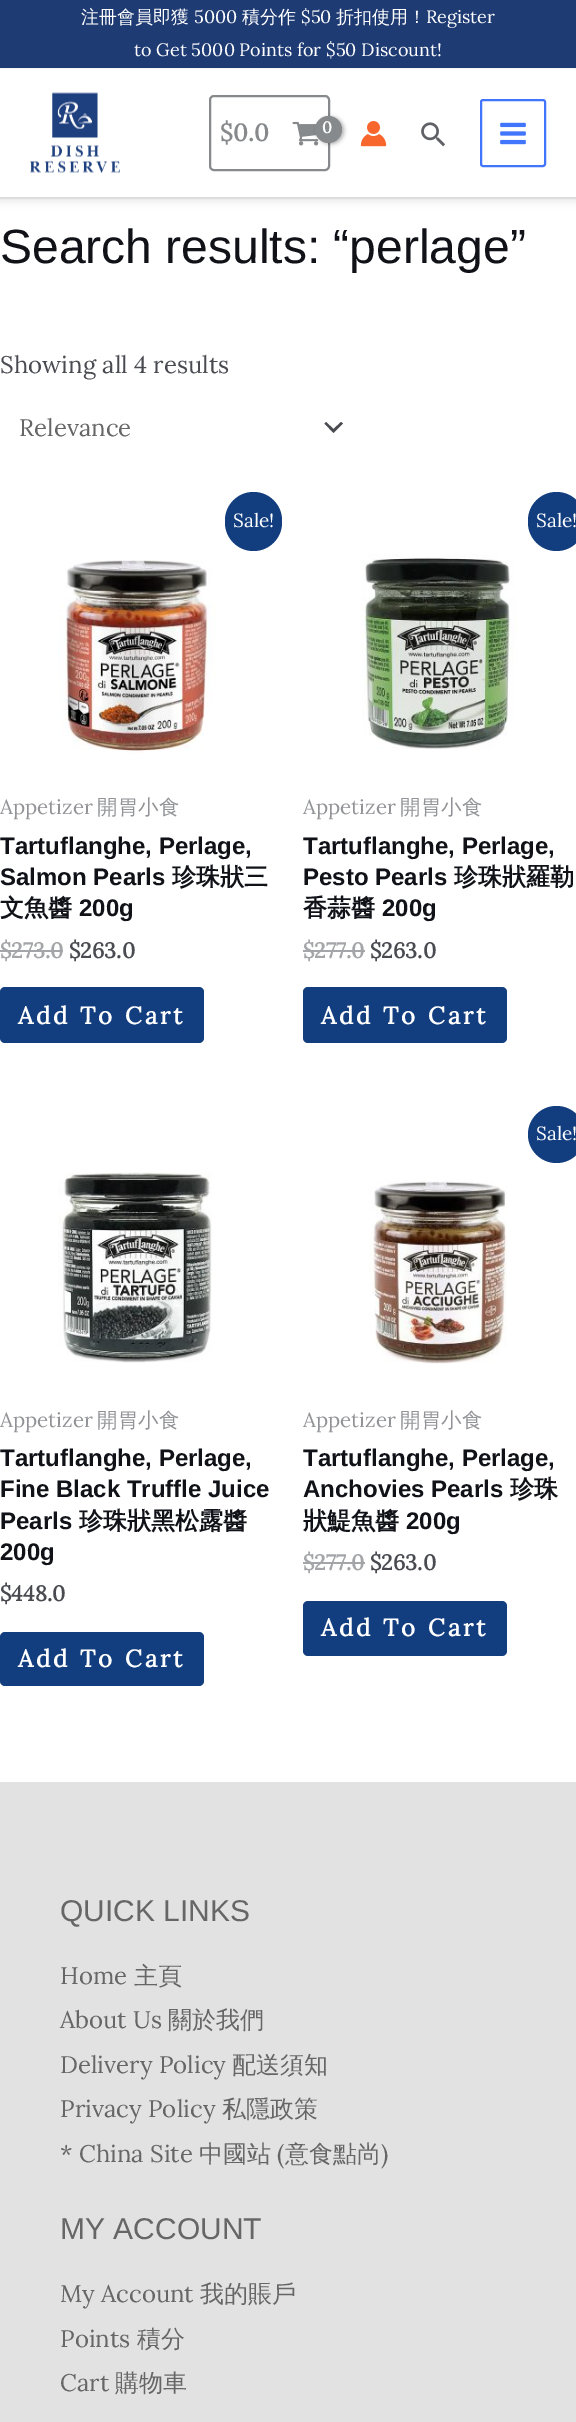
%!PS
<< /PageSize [576 2422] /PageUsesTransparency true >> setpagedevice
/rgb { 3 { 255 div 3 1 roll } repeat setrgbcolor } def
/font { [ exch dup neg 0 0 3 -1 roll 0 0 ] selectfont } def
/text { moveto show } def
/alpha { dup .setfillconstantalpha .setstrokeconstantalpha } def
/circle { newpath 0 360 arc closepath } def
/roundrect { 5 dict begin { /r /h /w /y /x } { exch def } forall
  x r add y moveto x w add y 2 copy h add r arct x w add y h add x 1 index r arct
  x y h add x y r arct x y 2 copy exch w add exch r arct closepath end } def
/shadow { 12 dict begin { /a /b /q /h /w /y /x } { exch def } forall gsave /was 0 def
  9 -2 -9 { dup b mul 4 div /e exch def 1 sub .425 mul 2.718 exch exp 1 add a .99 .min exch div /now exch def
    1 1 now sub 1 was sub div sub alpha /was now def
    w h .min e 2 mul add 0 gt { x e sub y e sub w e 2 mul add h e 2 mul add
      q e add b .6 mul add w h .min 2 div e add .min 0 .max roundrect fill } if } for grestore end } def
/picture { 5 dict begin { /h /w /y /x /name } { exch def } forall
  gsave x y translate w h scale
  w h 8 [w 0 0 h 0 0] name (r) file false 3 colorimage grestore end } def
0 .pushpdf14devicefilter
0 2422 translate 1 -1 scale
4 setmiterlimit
255 255 255 rgb
0 0 576 2422 rectfill
0 0 0 rgb
0 3 576 198 0 4 0.1 shadow
31 59 116 rgb
0 0 576 68 rectfill
243 245 245 rgb
0 68 576 1 rectfill
255 255 255 rgb
0 69 576 128 rectfill
221 221 221 rgb
0 197 576 2 rectfill
(img_01.rgb) 30 92 90 81 picture
135 138 140 rgb
2 setlinewidth
210 96 119 74 4 roundrect stroke
(img_02.rgb) 292 121 27 25 picture
0 0 0 rgb
317 117 27 27 13.5 2 0.3 shadow
135 138 140 rgb
328.5 129.5 13.5 circle fill
(img_03.rgb) 360 121 27 26 picture
(img_04.rgb) 421 122 25 25 picture
65 117 252 rgb
481 100 64 66 2 roundrect stroke
(img_05.rgb) 500 122 26 23 picture
73 75 81 rgb
324.5 423.5 moveto 9 9.5 rlineto 9.5 -9.5 rlineto -2 -1.5 rlineto -7.5 7 rlineto -7.5 -7 rlineto closepath fill
18 62 127 rgb
225 492 57 59 28.5 roundrect fill
(img_06.rgb) 58 560 157 194 picture
164 165 168 rgb
0 950 63 2 rectfill
18 62 127 rgb
0 987 204 56 5 roundrect fill
528 492 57 59 28.5 roundrect fill
(img_07.rgb) 361 554 157 196 picture
164 165 168 rgb
303 950 62 2 rectfill
18 62 127 rgb
303 987 204 56 5 roundrect fill
(img_08.rgb) 58 1172 154 191 picture
0 1632 204 54 5 roundrect fill
556.5 1134.5 28.5 circle fill
(img_09.rgb) 369 1180 138 184 picture
164 165 168 rgb
303 1562 62 2 rectfill
18 62 127 rgb
303 1601 204 55 5 roundrect fill
226 226 226 rgb
0 1782 576 640 rectfill
/WenQuanYiZenHei-Medium 18 font
255 255 255 rgb
(注冊會員即獲) 81 23 text
/Lora-Regular 18 font
(5000) 194 23 text
/WenQuanYiZenHei-Medium 18 font
(積分作) 242 23 text
/Lora-Regular 18 font
($50) 301 23 text
/WenQuanYiZenHei-Medium 18 font
(折扣使用！) 336 23 text
/Lora-Regular 18 font
(Register) 426 23 text
(to Get 5000 Points for $50 Discount!) 134 56 text
/Lora-Bold 24 font
135 138 140 rgb
($0.0) 220 141 text
/Lora-Bold 16 font
255 255 255 rgb
322 133 moveto -1 0 (0) ashow
/LiberationSans-Regular 48 font
16 18 24 rgb
(Search results: “perlage”) 0 263 text
/Lora-Regular 24 font
73 75 81 rgb
(Showing all 4 results) 0 373 text
102 102 102 rgb
(Relevance) 19 436 text
/Lora-Regular 19 font
255 255 255 rgb
(Sale!) 233 527 text
/Lora-Regular 20.5 font
146 147 151 rgb
(Appetizer) 0 814 text
/WenQuanYiZenHei-Medium 20.5 font
(開胃小食) 97 814 text
/LiberationSans-Bold 24 font
16 18 24 rgb
(Tartuflanghe, Perlage,) 0 854 text
(Salmon Pearls) 0 885 text
/WenQuanYiZenHei-Bold 24 font
(珍珠狀三) 172 885 text
(文魚醬) 0 916 text
/LiberationSans-Bold 24 font
(200g) 79 916 text
/Lora-Bold 21.5 font
164 165 168 rgb
($273.0) 0 958 text
73 75 81 rgb
($263.0) 69 958 text
/Lora-Bold 24 font
255 255 255 rgb
18 1024 moveto 3 0 (Add To Cart) ashow
/Lora-Regular 19 font
(Sale!) 536 527 text
/Lora-Regular 20.5 font
146 147 151 rgb
(Appetizer) 303 814 text
/WenQuanYiZenHei-Medium 20.5 font
(開胃小食) 400 814 text
/LiberationSans-Bold 24 font
16 18 24 rgb
(Tartuflanghe, Perlage,) 303 854 text
(Pesto Pearls) 303 885 text
/WenQuanYiZenHei-Bold 24 font
(珍珠狀羅勒) 454 885 text
(香蒜醬) 303 916 text
/LiberationSans-Bold 24 font
(200g) 382 916 text
/Lora-Bold 21.5 font
164 165 168 rgb
($277.0) 303 958 text
73 75 81 rgb
($263.0) 370 958 text
/Lora-Bold 24 font
255 255 255 rgb
321 1024 moveto 3 0 (Add To Cart) ashow
/Lora-Regular 20.5 font
146 147 151 rgb
(Appetizer) 0 1427 text
/WenQuanYiZenHei-Medium 20.5 font
(開胃小食) 97 1427 text
/LiberationSans-Bold 24 font
16 18 24 rgb
(Tartuflanghe, Perlage,) 0 1466 text
(Fine Black Truffle Juice) 0 1497 text
(Pearls) 0 1529 text
/WenQuanYiZenHei-Bold 24 font
(珍珠狀黑松露醬) 79 1529 text
/LiberationSans-Bold 24 font
(200g) 0 1560 text
/Lora-Bold 21.5 font
73 75 81 rgb
($448.0) 0 1601 text
/Lora-Bold 24 font
255 255 255 rgb
18 1667 moveto 3 0 (Add To Cart) ashow
/Lora-Regular 19 font
(Sale!) 536 1140 text
/Lora-Regular 20.5 font
146 147 151 rgb
(Appetizer) 303 1427 text
/WenQuanYiZenHei-Medium 20.5 font
(開胃小食) 400 1427 text
/LiberationSans-Bold 24 font
16 18 24 rgb
(Tartuflanghe, Perlage,) 303 1466 text
(Anchovies Pearls) 303 1497 text
/WenQuanYiZenHei-Bold 24 font
(珍珠) 510 1497 text
(狀鯷魚醬) 303 1529 text
/LiberationSans-Bold 24 font
(200g) 406 1529 text
/Lora-Bold 21.5 font
164 165 168 rgb
($277.0) 303 1570 text
73 75 81 rgb
($263.0) 370 1570 text
/Lora-Bold 24 font
255 255 255 rgb
321 1636 moveto 3 0 (Add To Cart) ashow
/LiberationSans-Regular 30 font
102 102 102 rgb
(QUICK LINKS) 60 1921 text
/Lora-Regular 24 font
(Home) 60 1984 text
/WenQuanYiZenHei-Medium 24 font
(主頁) 134 1984 text
/Lora-Regular 24 font
(About Us) 60 2028 text
/WenQuanYiZenHei-Medium 24 font
(關於我們) 168 2028 text
/Lora-Regular 24 font
(Delivery Policy) 60 2073 text
/WenQuanYiZenHei-Medium 24 font
(配送須知) 232 2073 text
/Lora-Regular 24 font
(Privacy Policy) 60 2117 text
/WenQuanYiZenHei-Medium 24 font
(私隱政策) 222 2117 text
/Lora-Regular 24 font
(* China Site) 60 2162 text
/WenQuanYiZenHei-Medium 24 font
(中國站) 199 2162 text
/Lora-Regular 24 font
(\() 277 2162 text
/WenQuanYiZenHei-Medium 24 font
(意食點尚) 285 2162 text
/Lora-Regular 24 font
(\)) 381 2162 text
/LiberationSans-Regular 30 font
(MY ACCOUNT) 60 2239 text
/Lora-Regular 24 font
(My Account) 60 2302 text
/WenQuanYiZenHei-Medium 24 font
(我的賬戶) 200 2302 text
/Lora-Regular 24 font
(Points) 60 2347 text
/WenQuanYiZenHei-Medium 24 font
(積分) 137 2347 text
/Lora-Regular 24 font
(Cart) 60 2391 text
/WenQuanYiZenHei-Medium 24 font
(購物車) 115 2391 text
.poppdf14devicefilter showpage
